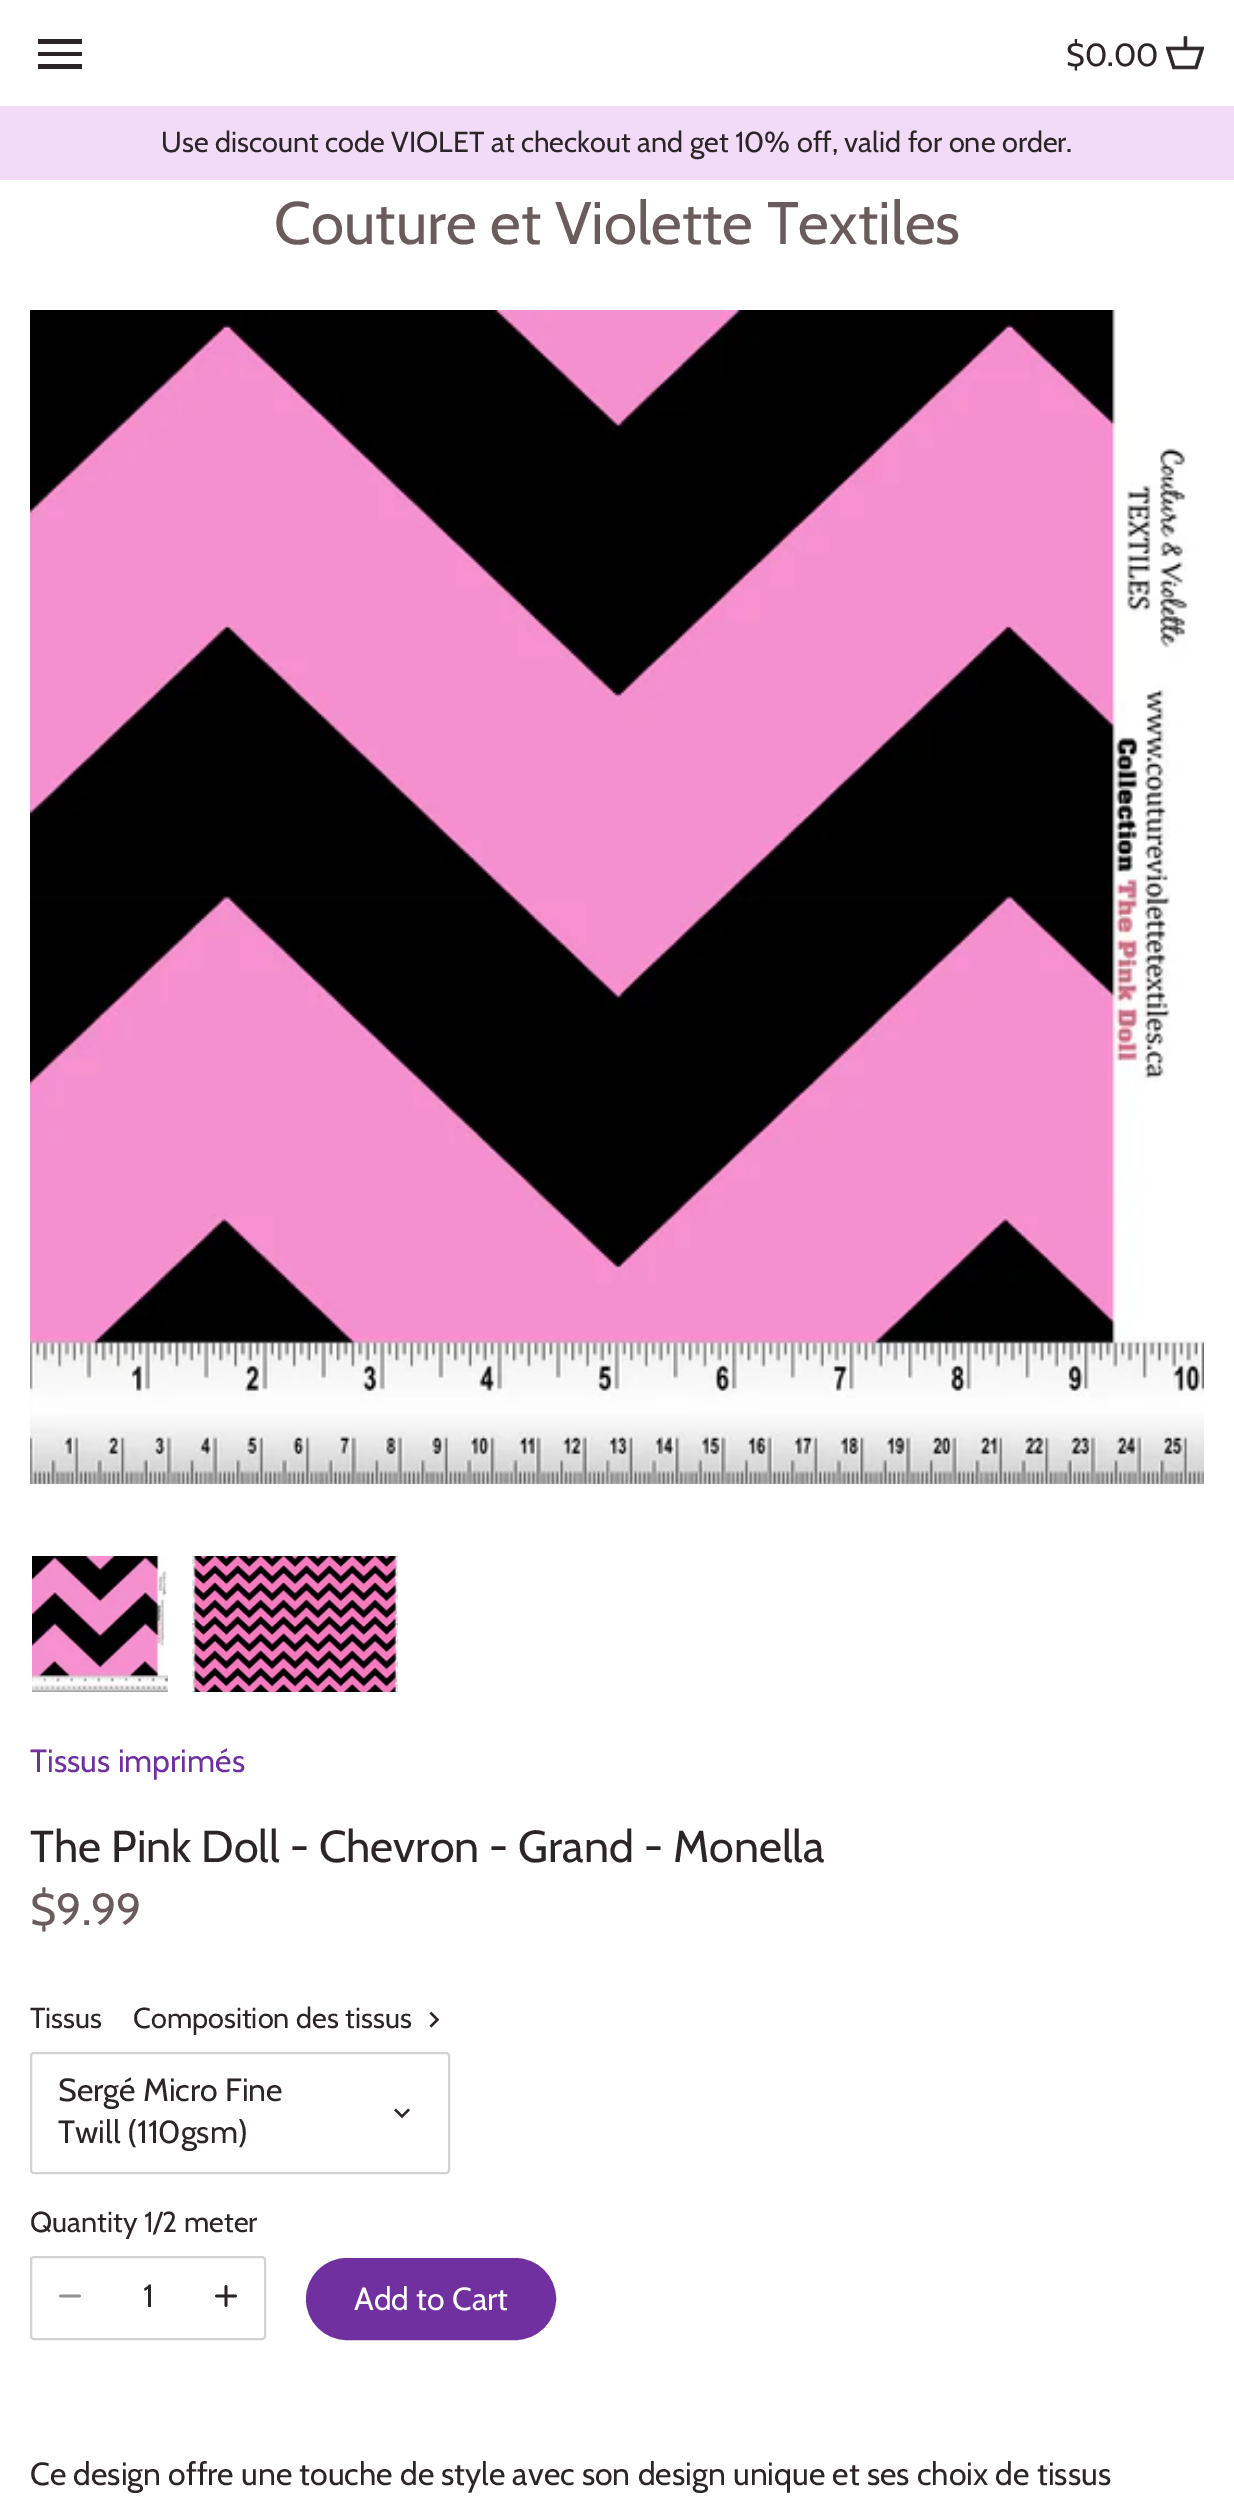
%!PS
<< /PageSize [1234 2504] >> setpagedevice
/rgb { 3 { 255 div 3 1 roll } repeat setrgbcolor } def
/font { [ exch dup neg 0 0 3 -1 roll 0 0 ] selectfont } def
/text { moveto show } def
/roundrect { 5 dict begin { /r /h /w /y /x } { exch def } forall
  x r add y moveto x w add y 2 copy h add r arct x w add y h add x 1 index r arct
  x y h add x y r arct x y 2 copy exch w add exch r arct closepath end } def
/picture { 5 dict begin { /h /w /y /x /name } { exch def } forall
  gsave x y translate w h scale
  w h 8 [w 0 0 h 0 0] name (r) file false 3 colorimage grestore end } def
0 2504 translate 1 -1 scale
4 setmiterlimit
255 255 255 rgb
0 0 1234 2504 rectfill
44 37 40 rgb
38 69 moveto 44 0 rlineto 0 -5 rlineto -44 0 rlineto closepath 38 56 moveto 44 0 rlineto 0 -4 rlineto -44 0 rlineto closepath 38 39 moveto 0 5 rlineto 44 0 rlineto 0 -5 rlineto closepath fill
(img_01.rgb) 1166 36 38 34 picture
241 219 247 rgb
0 106 1234 74 rectfill
(img_02.rgb) 30 310 1174 1174 picture
(img_03.rgb) 32 1556 136 136 picture
(img_04.rgb) 192 1556 206 136 picture
(img_05.rgb) 429 2011 11 17 picture
211 209 210 rgb
2 setlinewidth
31 2053 418 120 3 roundrect stroke
(img_06.rgb) 394 2108 16 11 picture
31 2257 234 82 3 roundrect stroke
150 146 148 rgb
2.7 setlinewidth
1 setlinecap
1 setlinejoin
60.5 2296 moveto 19 0 rlineto stroke
44 37 40 rgb
226 2286.5 moveto 0 19 rlineto 216.5 2296 moveto 19 0 rlineto stroke
112 48 160 rgb
308 2260 246 78 39 roundrect gsave fill grestore
4 setlinewidth
0 setlinecap
0 setlinejoin
stroke
/Cabin-Regular 32 font
44 37 40 rgb
($0.00) 1066 66 text
/Cabin-Regular 60 font
106 91 92 rgb
(Couture et Violette Textiles) 274 244 text
/Cabin-Regular 28.8 font
44 37 40 rgb
(Use discount code VIOLET at checkout and get 10% off, valid for one order.) 161 152 text
/Cabin-Regular 32 font
112 48 160 rgb
(Tissus imprimés) 30 1772 text
/Cabin-Regular 44.75 font
44 37 40 rgb
(The Pink Doll - Chevron - Grand - Monella) 30 1862 text
106 91 92 rgb
($9.99) 30 1925 text
/Cabin-Regular 28.8 font
44 37 40 rgb
(Tissus) 30 2028 text
(Composition des tissus) 133 2028 text
/Cabin-Regular 32 font
(Sergé Micro Fine) 58 2101 text
(Twill \(110gsm\)) 58 2143 text
/Cabin-Regular 28.8 font
(Quantity 1/2 meter) 30 2232 text
/Cabin-Regular 32 font
(1) 143 2307 text
255 255 255 rgb
(Add to Cart) 354 2310 text
44 37 40 rgb
(Ce design offre une touche de style avec son design unique et ses choix de tissus) 30 2485 text
showpage
